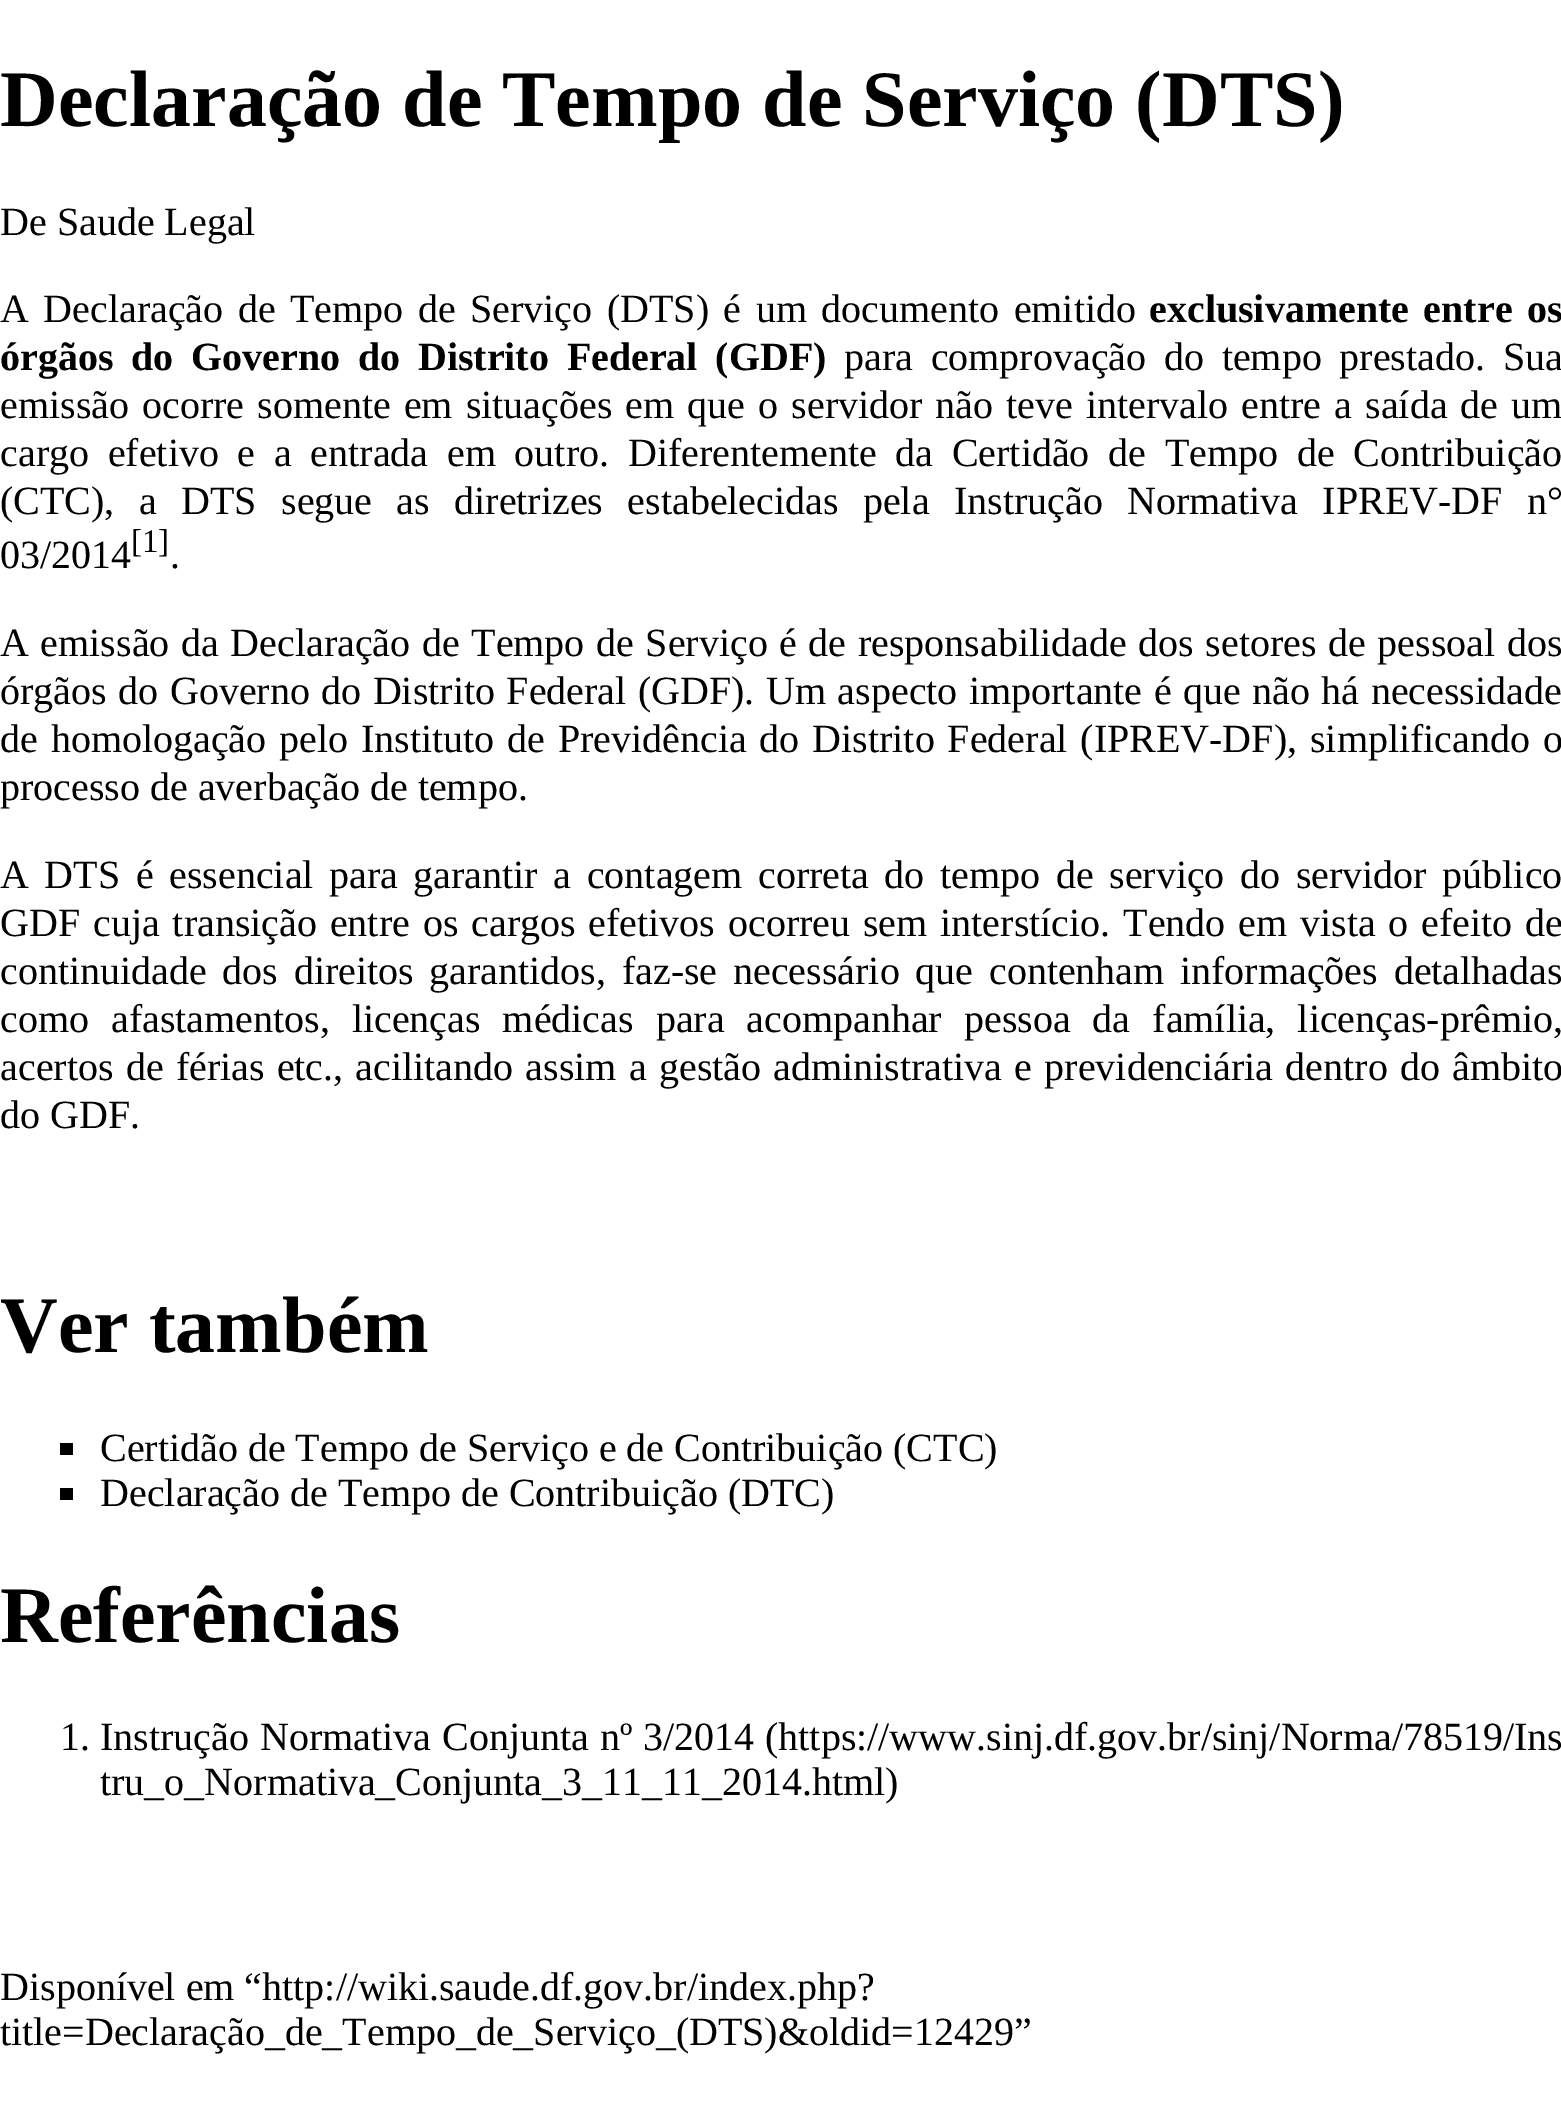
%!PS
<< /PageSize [1561 2116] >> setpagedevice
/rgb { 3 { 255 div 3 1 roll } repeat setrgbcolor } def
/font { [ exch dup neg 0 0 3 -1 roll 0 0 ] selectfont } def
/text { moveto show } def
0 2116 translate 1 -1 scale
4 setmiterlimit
255 255 255 rgb
0 0 1561 2116 rectfill
0 0 0 rgb
60 1443 13 12 rectfill
60 1488 13 12 rectfill
/LiberationSerif-Bold 80 font
(Declaração de Tempo de Serviço \(DTS\)) 0 126 text
/LiberationSerif-Regular 40 font
(De Saude Legal) 0 235 text
0 322 moveto 4.5 0 32 (A Declaração de Tempo de Serviço \(DTS\) é um documento emitido) widthshow
/LiberationSerif-Bold 40 font
1149 322 moveto 4.5 0 32 (exclusivamente entre os) widthshow
0 370 moveto 7.75 0 32 (órgãos do Governo do Distrito Federal \(GDF\)) widthshow
/LiberationSerif-Regular 40 font
844 370 moveto 7.75 0 32 (para comprovação do tempo prestado. Sua) widthshow
0 418 moveto 3.1 0 32 (emissão ocorre somente em situações em que o servidor não teve intervalo entre a saída de um) widthshow
0 466 moveto 8.75 0 32 (cargo efetivo e a entrada em outro. Diferentemente da Certidão de Tempo de Contribuição) widthshow
0 514 moveto 14.4 0 32 (\(CTC\), a DTS segue as diretrizes estabelecidas pela Instrução Normativa IPREV-DF n°) widthshow
(03/2014) 0 568 text
/LiberationSerif-Regular 33 font
([1]) 131 552 text
/LiberationSerif-Regular 40 font
(.) 170 568 text
0 656 moveto 1.6 0 32 (A emissão da Declaração de Tempo de Serviço é de responsabilidade dos setores de pessoal dos) widthshow
0 704 moveto 1.5 0 32 (órgãos do Governo do Distrito Federal \(GDF\). Um aspecto importante é que não há necessidade) widthshow
0 752 moveto 2.9 0 32 (de homologação pelo Instituto de Previdência do Distrito Federal \(IPREV-DF\), simplificando o) widthshow
(processo de averbação de tempo.) 0 800 text
0 888 moveto 5.6 0 32 (A DTS é essencial para garantir a contagem correta do tempo de serviço do servidor público) widthshow
0 936 moveto 2.9 0 32 (GDF cuja transição entre os cargos efetivos ocorreu sem interstício. Tendo em vista o efeito de) widthshow
0 984 moveto 5.75 0 32 (continuidade dos direitos garantidos, faz-se necessário que contenham informações detalhadas) widthshow
0 1032 moveto 12 0 32 (como afastamentos, licenças médicas para acompanhar pessoa da família, licenças-prêmio,) widthshow
0 1080 moveto 2.25 0 32 (acertos de férias etc., acilitando assim a gestão administrativa e previdenciária dentro do âmbito) widthshow
(do GDF.) 0 1128 text
/LiberationSerif-Bold 80 font
(Ver também) 0 1352 text
/LiberationSerif-Regular 40 font
(Certidão de Tempo de Serviço e de Contribuição \(CTC\)) 100 1461 text
(Declaração de Tempo de Contribuição \(DTC\)) 100 1506 text
/LiberationSerif-Bold 80 font
(Referências) 0 1642 text
/LiberationSerif-Regular 40 font
(1.) 60 1750 text
100 1750 moveto 1 0 32 (Instrução Normativa Conjunta nº 3/2014) widthshow
(\(https://www.sinj.df.gov.br/sinj/Norma/78519/Ins) 765 1750 text
(tru_o_Normativa_Conjunta_3_11_11_2014.html\)) 100 1795 text
(Disponível em “http://wiki.saude.df.gov.br/index.php?) 0 2000 text
(title=Declaração_de_Tempo_de_Serviço_\(DTS\)&oldid=12429”) 0 2045 text
showpage
